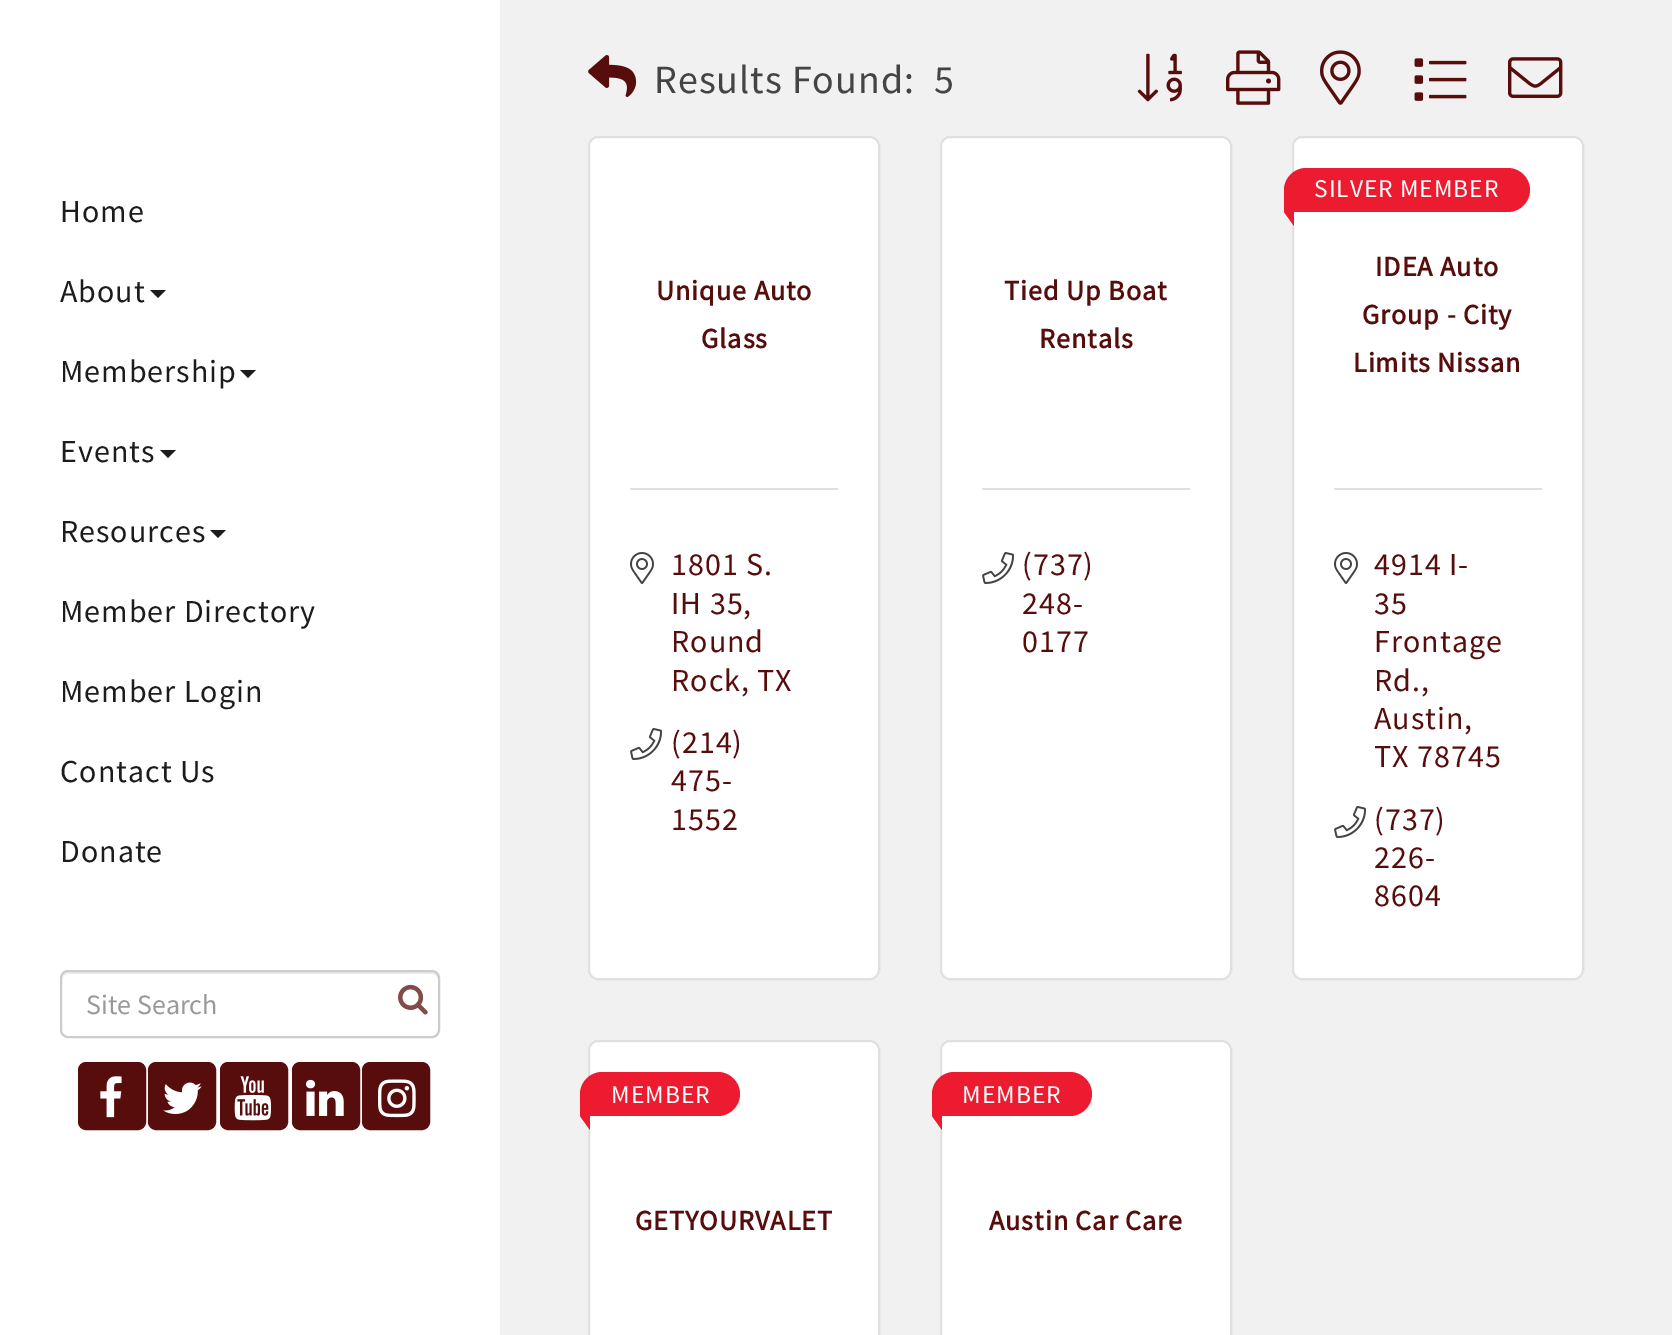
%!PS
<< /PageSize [1672 1335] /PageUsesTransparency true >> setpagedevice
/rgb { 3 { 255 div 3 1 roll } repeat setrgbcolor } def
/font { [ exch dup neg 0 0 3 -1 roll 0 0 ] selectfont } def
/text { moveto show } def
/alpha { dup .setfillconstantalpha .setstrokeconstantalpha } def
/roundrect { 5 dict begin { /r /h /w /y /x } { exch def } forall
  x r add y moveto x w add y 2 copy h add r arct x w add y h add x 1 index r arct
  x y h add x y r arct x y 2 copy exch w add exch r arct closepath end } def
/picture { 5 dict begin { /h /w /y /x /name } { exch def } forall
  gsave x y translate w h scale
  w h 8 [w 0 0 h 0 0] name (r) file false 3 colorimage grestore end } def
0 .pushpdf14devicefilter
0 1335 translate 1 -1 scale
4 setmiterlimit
241 241 241 rgb
0 0 1672 1335 rectfill
255 255 255 rgb
0 0 500 1335 rectfill
28 28 28 rgb
150 290 moveto 16 0 rlineto -8 8 rlineto closepath fill
240 370 moveto 16 0 rlineto -8 8 rlineto closepath fill
160 450 moveto 16 0 rlineto -8 8 rlineto closepath fill
210 530 moveto 16 0 rlineto -8 8 rlineto closepath fill
236 236 236 rgb
68 974 moveto 364 0 rlineto 3 0 6 3 6 6 rcurveto 0 -4 -1 -8 -6 -8 rcurveto -364 0 rlineto -5 0 -6 4 -6 8 rcurveto 0 -3 3 -6 6 -6 rcurveto closepath fill
204 204 204 rgb
2 setlinewidth
61 971 378 66 7 roundrect stroke
(img_01.rgb) 398 984 30 31 picture
88 13 13 rgb
79 1063 66 66 7 roundrect gsave fill grestore
stroke
(img_02.rgb) 100 1076 22 42 picture
149 1063 66 66 7 roundrect gsave fill grestore
stroke
(img_03.rgb) 163 1082 39 32 picture
221 1063 66 66 7 roundrect gsave fill grestore
stroke
(img_04.rgb) 234 1076 38 45 picture
293 1063 66 66 7 roundrect gsave fill grestore
stroke
(img_05.rgb) 306 1079 38 37 picture
363 1063 66 66 7 roundrect gsave fill grestore
stroke
(img_06.rgb) 378 1079 38 39 picture
(img_07.rgb) 588 55 49 42 picture
(img_08.rgb) 1137 53 45 49 picture
(img_09.rgb) 1226 50 55 55 picture
(img_10.rgb) 1320 50 41 55 picture
(img_11.rgb) 1414 58 53 43 picture
(img_12.rgb) 1508 57 55 41 picture
255 255 255 rgb
588 136 292 844 10 roundrect fill
0.12 alpha
0 0 0 rgb
589 137 290 842 9 roundrect stroke
1 alpha
223 223 223 rgb
630 488 208 2 rectfill
(img_13.rgb) 630 552 24 32 picture
(img_14.rgb) 630 728 33 32 picture
255 255 255 rgb
940 136 292 844 10 roundrect fill
0.12 alpha
0 0 0 rgb
941 137 290 842 9 roundrect stroke
1 alpha
223 223 223 rgb
982 488 208 2 rectfill
(img_14.rgb) 982 552 33 32 picture
255 255 255 rgb
1292 136 292 844 10 roundrect fill
0.12 alpha
0 0 0 rgb
1293 137 290 842 9 roundrect stroke
1 alpha
237 27 47 rgb
1306 168 moveto 202 0 rlineto 12 0 22 10 22 22 rcurveto 0 12 -10 22 -22 22 rcurveto -223 0 rlineto -0.5 0 -1 -0.5 -1 -1 rcurveto 0 -21 rlineto 0 -12 10 -22 22 -22 rcurveto closepath fill
1294 198 moveto 0 28 rlineto -10 -14 rlineto closepath fill
223 223 223 rgb
1334 488 208 2 rectfill
(img_13.rgb) 1334 552 24 32 picture
(img_14.rgb) 1334 806 33 32 picture
255 255 255 rgb
588 1040 292 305 10 roundrect fill
0.12 alpha
0 0 0 rgb
589 1041 290 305 9 roundrect stroke
1 alpha
237 27 47 rgb
602 1072 moveto 116 0 rlineto 12 0 22 10 22 22 rcurveto 0 12 -10 22 -22 22 rcurveto -137 0 rlineto -0.5 0 -1 -0.5 -1 -1 rcurveto 0 -21 rlineto 0 -12 10 -22 22 -22 rcurveto closepath fill
590 1102 moveto 0 28 rlineto -10 -14 rlineto closepath fill
255 255 255 rgb
940 1040 292 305 10 roundrect fill
0.12 alpha
0 0 0 rgb
941 1041 290 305 9 roundrect stroke
1 alpha
237 27 47 rgb
954 1072 moveto 116 0 rlineto 12 0 22 10 22 22 rcurveto 0 12 -10 22 -22 22 rcurveto -137 0 rlineto -0.5 0 -1 -0.5 -1 -1 rcurveto 0 -21 rlineto 0 -12 10 -22 22 -22 rcurveto closepath fill
942 1102 moveto 0 28 rlineto -10 -14 rlineto closepath fill
/SourceSansPro-Regular 32 font
28 28 28 rgb
60 222 moveto 1 0 (Home) ashow
60 302 moveto 1 0 (About) ashow
60 382 moveto 1 0 (Membership) ashow
60 462 moveto 1 0 (Events) ashow
60 542 moveto 1 0 (Resources) ashow
60 622 moveto 1 0 (Member Directory) ashow
60 702 moveto 1 0 (Member Login) ashow
60 782 moveto 1 0 (Contact Us) ashow
60 862 moveto 1 0 (Donate) ashow
/SourceSansPro-Regular 28 font
153 153 153 rgb
(Site Search) 86 1014 text
/SourceSansPro-Regular 40 font
68 68 68 rgb
654 93 moveto 1 0 (Results Found:) ashow
934 93 moveto 1 0 (5) ashow
/SourceSansPro-Bold 28 font
88 13 13 rgb
656 300 moveto 1 0 (Unique Auto) ashow
701 348 moveto 1 0 (Glass) ashow
/SourceSansPro-Regular 32 font
671 575 moveto 1 0 (1801 S.) ashow
671 614 moveto 1 0 (IH 35,) ashow
671 652 moveto 1 0 (Round) ashow
671 691 moveto 1 0 (Rock, TX) ashow
671 753 moveto 1 0 (\(214\)) ashow
671 791 moveto 1 0 (475-) ashow
671 830 moveto 1 0 (1552) ashow
/SourceSansPro-Bold 28 font
1004 300 moveto 1 0 (Tied Up Boat) ashow
1039 348 moveto 1 0 (Rentals) ashow
/SourceSansPro-Regular 32 font
1022 575 moveto 1 0 (\(737\)) ashow
1022 614 moveto 1 0 (248-) ashow
1022 652 moveto 1 0 (0177) ashow
/SourceSansPro-Regular 25.5 font
255 255 255 rgb
1314 197 moveto 1 0 (SILVER MEMBER) ashow
/SourceSansPro-Bold 28 font
88 13 13 rgb
1375 276 moveto 1 0 (IDEA Auto) ashow
1362 324 moveto 1 0 (Group - City) ashow
1353 372 moveto 1 0 (Limits Nissan) ashow
/SourceSansPro-Regular 32 font
1374 575 moveto 1 0 (4914 I-) ashow
1374 614 moveto 1 0 (35) ashow
1374 652 moveto 1 0 (Frontage) ashow
1374 691 moveto 1 0 (Rd.,) ashow
1374 729 moveto 1 0 (Austin,) ashow
1374 767 moveto 1 0 (TX 78745) ashow
1374 830 moveto 1 0 (\(737\)) ashow
1374 868 moveto 1 0 (226-) ashow
1374 906 moveto 1 0 (8604) ashow
/SourceSansPro-Regular 25.5 font
255 255 255 rgb
611 1103 moveto 1 0 (MEMBER) ashow
/SourceSansPro-Bold 28 font
88 13 13 rgb
635 1230 moveto 1 0 (GETYOURVALET) ashow
/SourceSansPro-Regular 25.5 font
255 255 255 rgb
962 1103 moveto 1 0 (MEMBER) ashow
/SourceSansPro-Bold 28 font
88 13 13 rgb
989 1230 moveto 1 0 (Austin Car Care) ashow
.poppdf14devicefilter showpage
